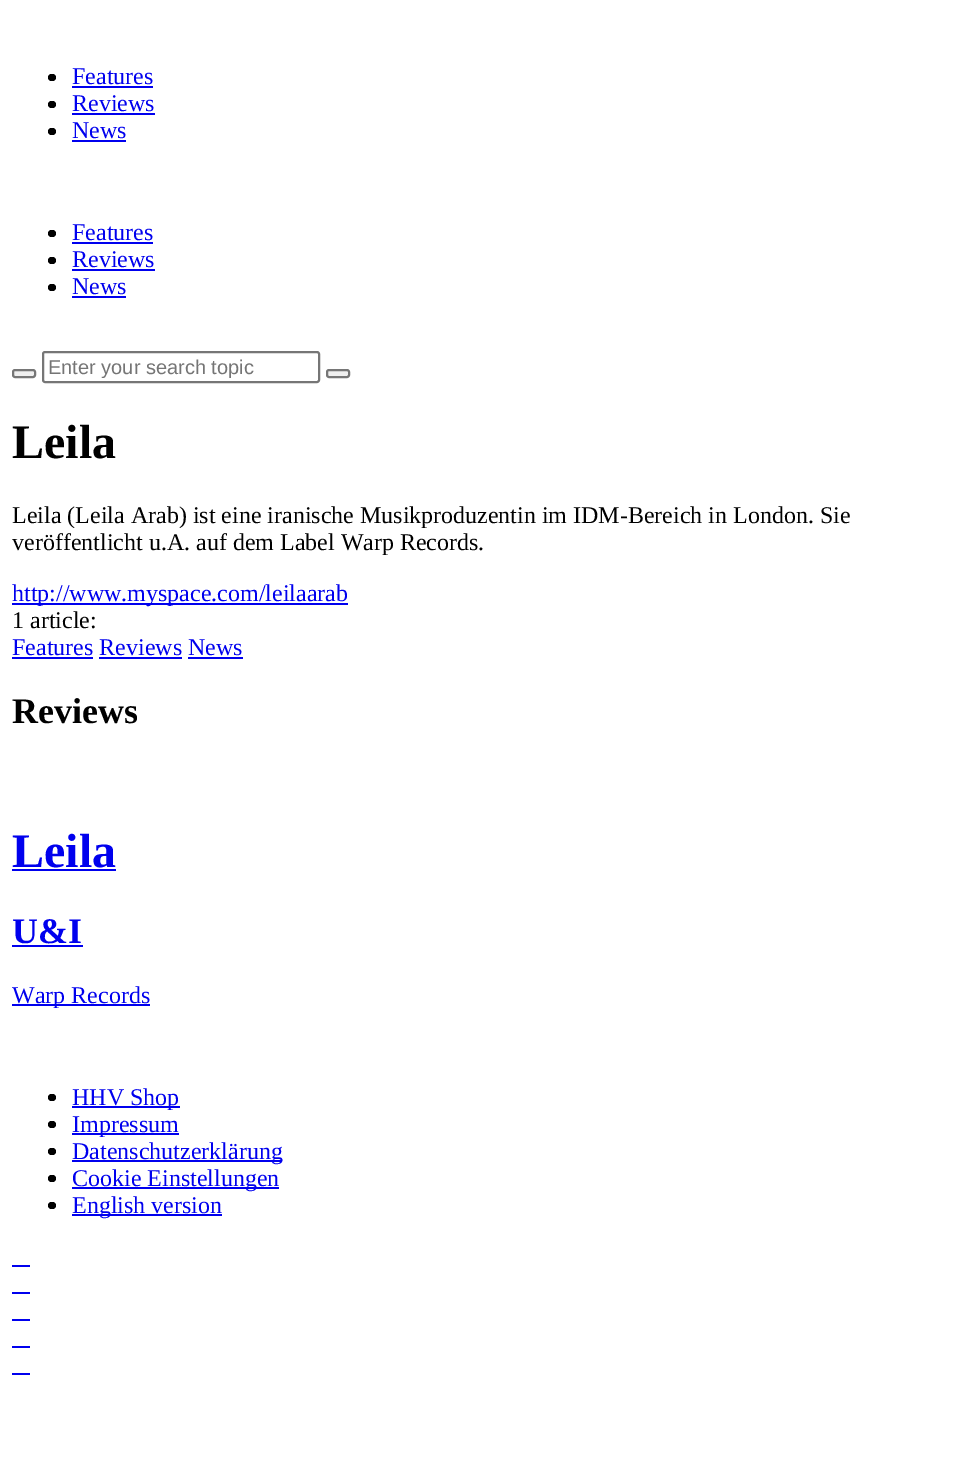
%!PS
<< /PageSize [975 1482] >> setpagedevice
/rgb { 3 { 255 div 3 1 roll } repeat setrgbcolor } def
/font { [ exch dup neg 0 0 3 -1 roll 0 0 ] selectfont } def
/text { moveto show } def
/roundrect { 5 dict begin { /r /h /w /y /x } { exch def } forall
  x r add y moveto x w add y 2 copy h add r arct x w add y h add x 1 index r arct
  x y h add x y r arct x y 2 copy exch w add exch r arct closepath end } def
0 1482 translate 1 -1 scale
4 setmiterlimit
255 255 255 rgb
0 0 975 1482 rectfill
0 0 0 rgb
48 74 8 7 3.5 roundrect fill
0 0 238 rgb
72 86 81 2 rectfill
0 0 0 rgb
48 101 8 7 3.5 roundrect fill
0 0 238 rgb
72 113 83 2 rectfill
0 0 0 rgb
48 128 8 7 3.5 roundrect fill
0 0 238 rgb
72 140 54 2 rectfill
0 0 0 rgb
48 230 8 7 3.5 roundrect fill
0 0 238 rgb
72 242 81 2 rectfill
0 0 0 rgb
48 257 8 7 3.5 roundrect fill
0 0 238 rgb
72 269 83 2 rectfill
0 0 0 rgb
48 284 8 7 3.5 roundrect fill
0 0 238 rgb
72 296 54 2 rectfill
239 239 239 rgb
13 370 22 7 2 roundrect gsave fill grestore
118 118 118 rgb
2 setlinewidth
stroke
43 352 276 30 2 roundrect stroke
239 239 239 rgb
327 370 22 7 2 roundrect gsave fill grestore
118 118 118 rgb
stroke
0 0 238 rgb
12 603 336 2 rectfill
12 657 81 2 rectfill
99 657 83 2 rectfill
188 657 55 2 rectfill
12 869 104 2 rectfill
12 945 71 2 rectfill
12 1004 138 2 rectfill
0 0 0 rgb
48 1094 8 7 3.5 roundrect fill
0 0 238 rgb
72 1106 108 2 rectfill
0 0 0 rgb
48 1121 8 7 3.5 roundrect fill
0 0 238 rgb
72 1133 107 2 rectfill
0 0 0 rgb
48 1148 8 7 3.5 roundrect fill
0 0 238 rgb
72 1160 210 2 rectfill
0 0 0 rgb
48 1175 8 7 3.5 roundrect fill
0 0 238 rgb
72 1187 207 2 rectfill
0 0 0 rgb
48 1202 8 7 3.5 roundrect fill
0 0 238 rgb
72 1214 150 2 rectfill
12 1265 18 2 rectfill
12 1292 18 2 rectfill
12 1319 18 2 rectfill
12 1346 18 2 rectfill
12 1373 18 2 rectfill
/LiberationSerif-Regular 24 font
(Features) 72 84 text
(Reviews) 72 111 text
(News) 72 138 text
(Features) 72 240 text
(Reviews) 72 267 text
(News) 72 294 text
gsave
48 356 246 22 rectclip
/LiberationSans-Regular 20 font
117 117 117 rgb
(Enter your search topic) 48 374 text
grestore
/LiberationSerif-Bold 48 font
0 0 0 rgb
(Leila) 12 458 text
/LiberationSerif-Regular 24 font
(Leila \(Leila Arab\) ist eine iranische Musikproduzentin im IDM-Bereich in London. Sie) 12 523 text
(veröffentlicht u.A. auf dem Label Warp Records.) 12 550 text
0 0 238 rgb
(http://www.myspace.com/leilaarab) 12 601 text
0 0 0 rgb
(1 article:) 12 628 text
0 0 238 rgb
(Features Reviews News) 12 655 text
/LiberationSerif-Bold 36 font
0 0 0 rgb
(Reviews) 12 723 text
/LiberationSerif-Bold 48 font
0 0 238 rgb
(Leila) 12 867 text
/LiberationSerif-Bold 36 font
(U&I) 12 943 text
/LiberationSerif-Regular 24 font
(Warp Records) 12 1003 text
(HHV Shop) 72 1105 text
(Impressum) 72 1132 text
(Datenschutzerklärung) 72 1159 text
(Cookie Einstellungen) 72 1186 text
(English version) 72 1213 text
showpage
